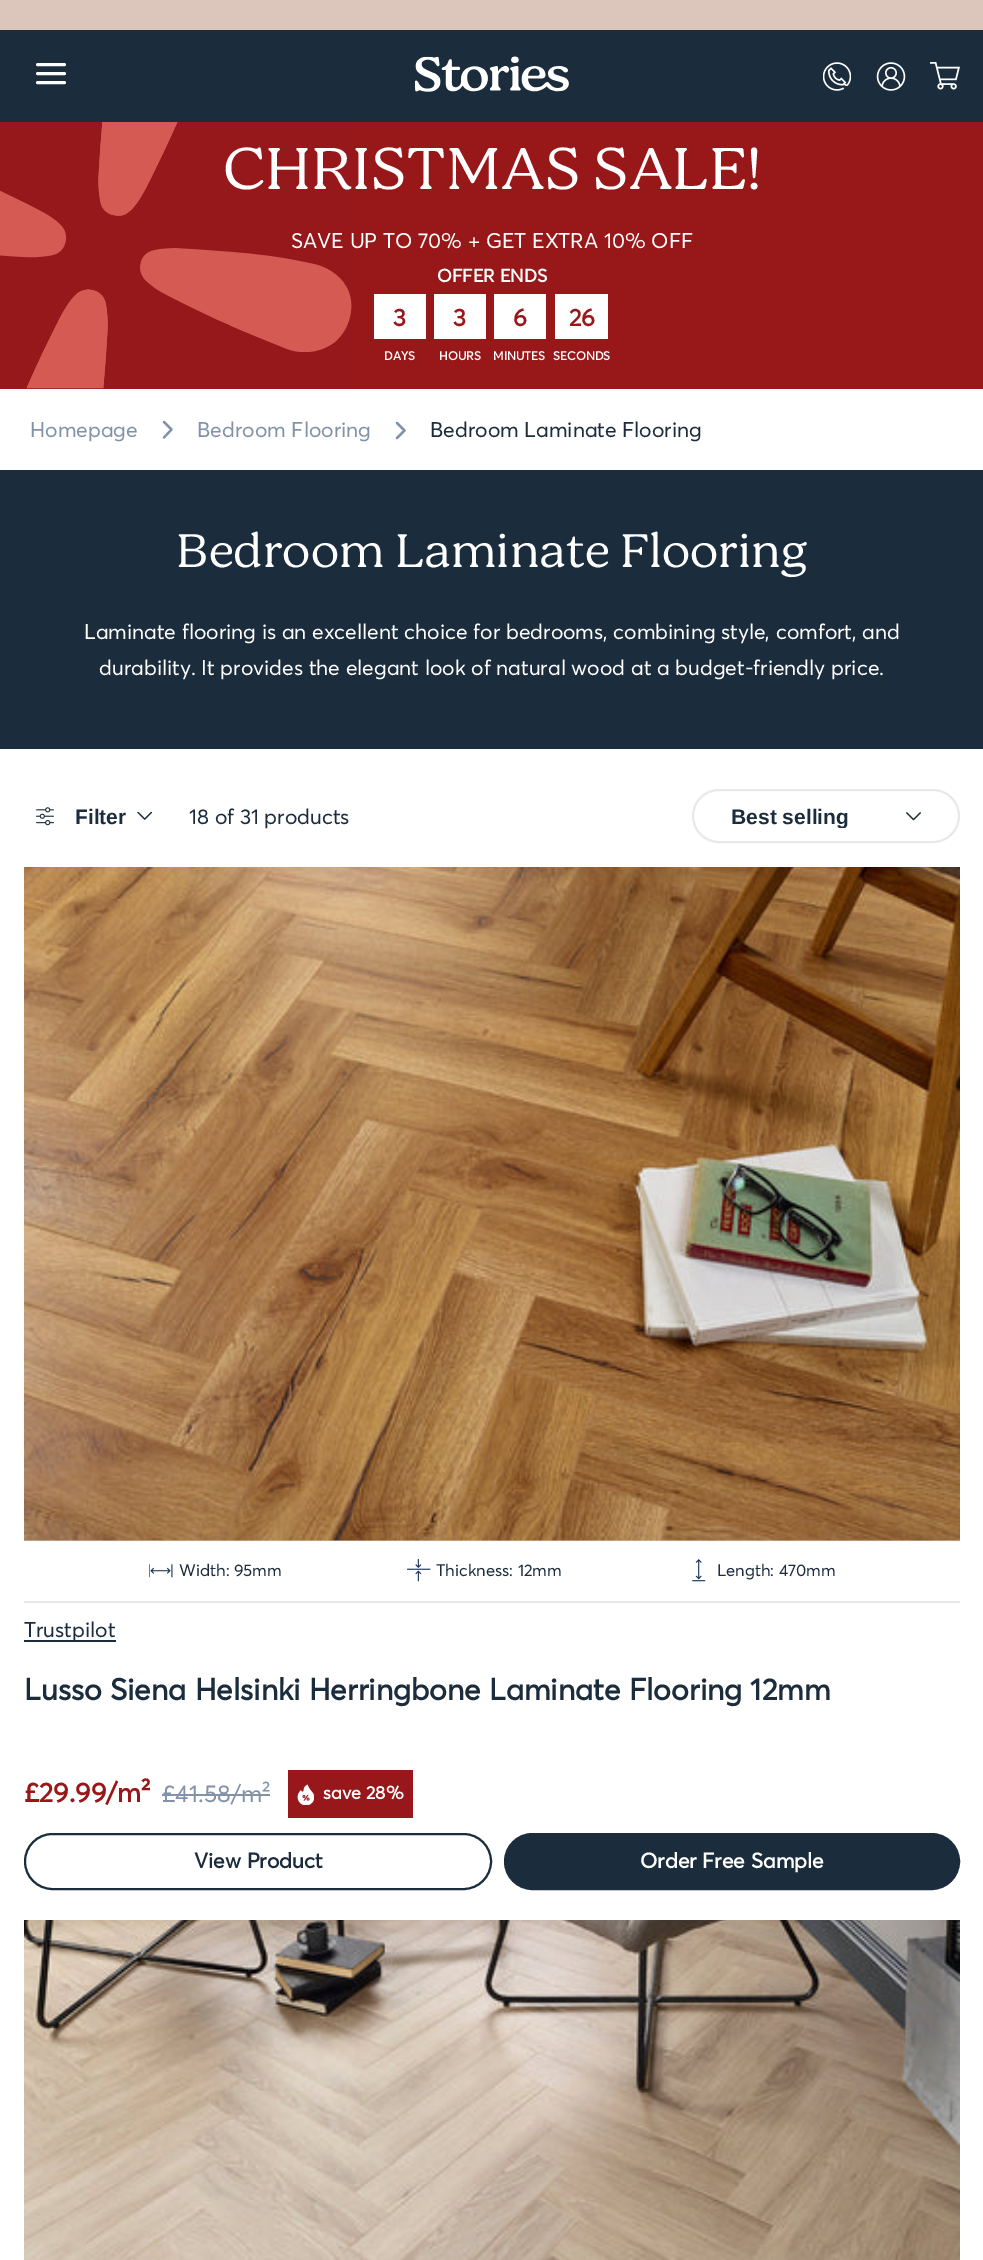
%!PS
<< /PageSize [983 2260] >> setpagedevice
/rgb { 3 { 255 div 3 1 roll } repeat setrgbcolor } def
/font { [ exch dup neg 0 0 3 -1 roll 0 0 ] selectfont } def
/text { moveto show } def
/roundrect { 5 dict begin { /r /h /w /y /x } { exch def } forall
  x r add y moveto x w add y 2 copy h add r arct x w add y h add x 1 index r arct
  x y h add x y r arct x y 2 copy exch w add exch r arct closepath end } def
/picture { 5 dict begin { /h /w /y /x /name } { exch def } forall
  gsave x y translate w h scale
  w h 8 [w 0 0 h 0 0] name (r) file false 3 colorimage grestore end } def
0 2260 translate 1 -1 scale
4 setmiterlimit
255 255 255 rgb
0 0 983 2260 rectfill
220 198 188 rgb
0 0 983 30 rectfill
27 45 61 rgb
0 30 983 92 rectfill
255 255 255 rgb
3 setlinewidth
1 setlinecap
1 setlinejoin
37.5 73.5 moveto 27 0 rlineto 37.5 64.5 moveto 27 0 rlineto 37.5 82.5 moveto 27 0 rlineto stroke
(img_01.rgb) 415 56 154 36 picture
(img_02.rgb) 823 62 28 29 picture
(img_03.rgb) 876 62 30 29 picture
(img_04.rgb) 930 62 30 28 picture
152 24 26 rgb
0 122 983 267 rectfill
(img_05.rgb) 0 122 352 267 picture
255 255 255 rgb
374 294 52 45 rectfill
434 294 52 45 rectfill
494 294 52 45 rectfill
555 294 53 45 rectfill
gsave
161.5 439.5 moveto 0 -18 rlineto 12 0 rlineto 0 18 rlineto closepath clip newpath
130 145 168 rgb
2.2 setlinewidth
164 437.5 moveto 7.5 -8 rlineto -7.5 -7.5 rlineto stroke
grestore
130 145 168 rgb
2.2 setlinewidth
397 438 moveto 7.5 -7.5 rlineto -7.5 -7.5 rlineto stroke
27 44 61 rgb
0 470 983 279 rectfill
(img_06.rgb) 36 807 18 19 picture
(img_07.rgb) 137 812 15 8 picture
(img_08.rgb) 906 812 15 9 picture
233 233 233 rgb
2 setlinewidth
0 setlinecap
0 setlinejoin
693 790 266 52 26 roundrect stroke
218 198 187 rgb
24 1540 936 1 rectfill
(img_09.rgb) 24 867 936 674 picture
230 231 235 rgb
24 1601 936 2 rectfill
(img_10.rgb) 149 1564 24 14 picture
(img_11.rgb) 407 1559 24 23 picture
(img_12.rgb) 692 1559 14 23 picture
27 44 61 rgb
24 1640 92 2 rectfill
130 146 168 rgb
162 1794 69 2 rectfill
231 1794 39 2 rectfill
151 23 26 rgb
288 1770 125 48 rectfill
(img_13.rgb) 297 1784 17 21 picture
27 45 61 rgb
25 1834 466 55 27.5 roundrect stroke
505 1834 454 55 27.5 roundrect gsave fill grestore
stroke
(img_14.rgb) 24 1920 936 340 picture
/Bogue-Light 60 font
255 255 255 rgb
(CHRISTMAS SALE!) 223 189 text
/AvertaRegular-Regular 21 font
(SAVE UP TO 70% + GET EXTRA 10% OFF) 291 248 text
/AvertaRegular-Bold 18 font
(OFFER ENDS) 437 282 text
/AvertaRegular-Bold 24 font
152 24 26 rgb
(3) 393 326 text
/AvertaRegular-Bold 12 font
255 255 255 rgb
(DAYS) 384 360 text
/AvertaRegular-Bold 24 font
152 24 26 rgb
(3) 453 326 text
/AvertaRegular-Bold 12 font
255 255 255 rgb
(HOURS) 439 360 text
/AvertaRegular-Bold 24 font
152 24 26 rgb
(6) 513 326 text
/AvertaRegular-Bold 12 font
255 255 255 rgb
(MINUTES) 493 360 text
/AvertaRegular-Bold 24 font
152 24 26 rgb
(26) 569 326 text
/AvertaRegular-Bold 12 font
255 255 255 rgb
(SECONDS) 553 360 text
/AvertaRegular-Regular 21 font
130 146 168 rgb
(Homepage) 30 437 text
(Bedroom Flooring) 197 437 text
27 44 61 rgb
(Bedroom Laminate Flooring) 430 437 text
/Bogue-Light 48 font
255 255 255 rgb
(Bedroom Laminate Flooring) 176 567 text
/AvertaRegular-Regular 21 font
(Laminate flooring is an excellent choice for bedrooms, combining style, comfort, and) 84 639 text
(durability. It provides the elegant look of natural wood at a budget-friendly price.) 99 675 text
/LiberationSans-Bold 21 font
27 44 61 rgb
(Filter) 75 824 text
/AvertaRegular-Regular 21 font
(18 of 31 products) 189 824 text
gsave
731 804 190 24 rectclip
/LiberationSans-Bold 21 font
(Best selling) 731 824 text
grestore
/AvertaRegular-Regular 16.5 font
(Width: 95mm) 179 1576 text
(Thickness: 12mm) 436 1576 text
(Length: 470mm) 717 1576 text
/AvertaRegular-Regular 21 font
(Trustpilot) 24 1637 text
/AvertaRegular-Bold 30 font
(Lusso Siena Helsinki Herringbone Laminate Flooring 12mm) 24 1700 text
/AvertaRegular-Bold 27 font
152 24 26 rgb
(£29.99/m²) 24 1802 text
/AvertaRegular-Regular 24 font
130 146 168 rgb
(£41.58) 162 1802 text
(/m²) 231 1802 text
/AvertaRegular-Bold 18 font
255 255 255 rgb
(save 28%) 323 1799 text
/AvertaRegular-Bold 21 font
27 44 61 rgb
(View Product) 194 1868 text
255 255 255 rgb
(Order Free Sample) 640 1868 text
showpage
